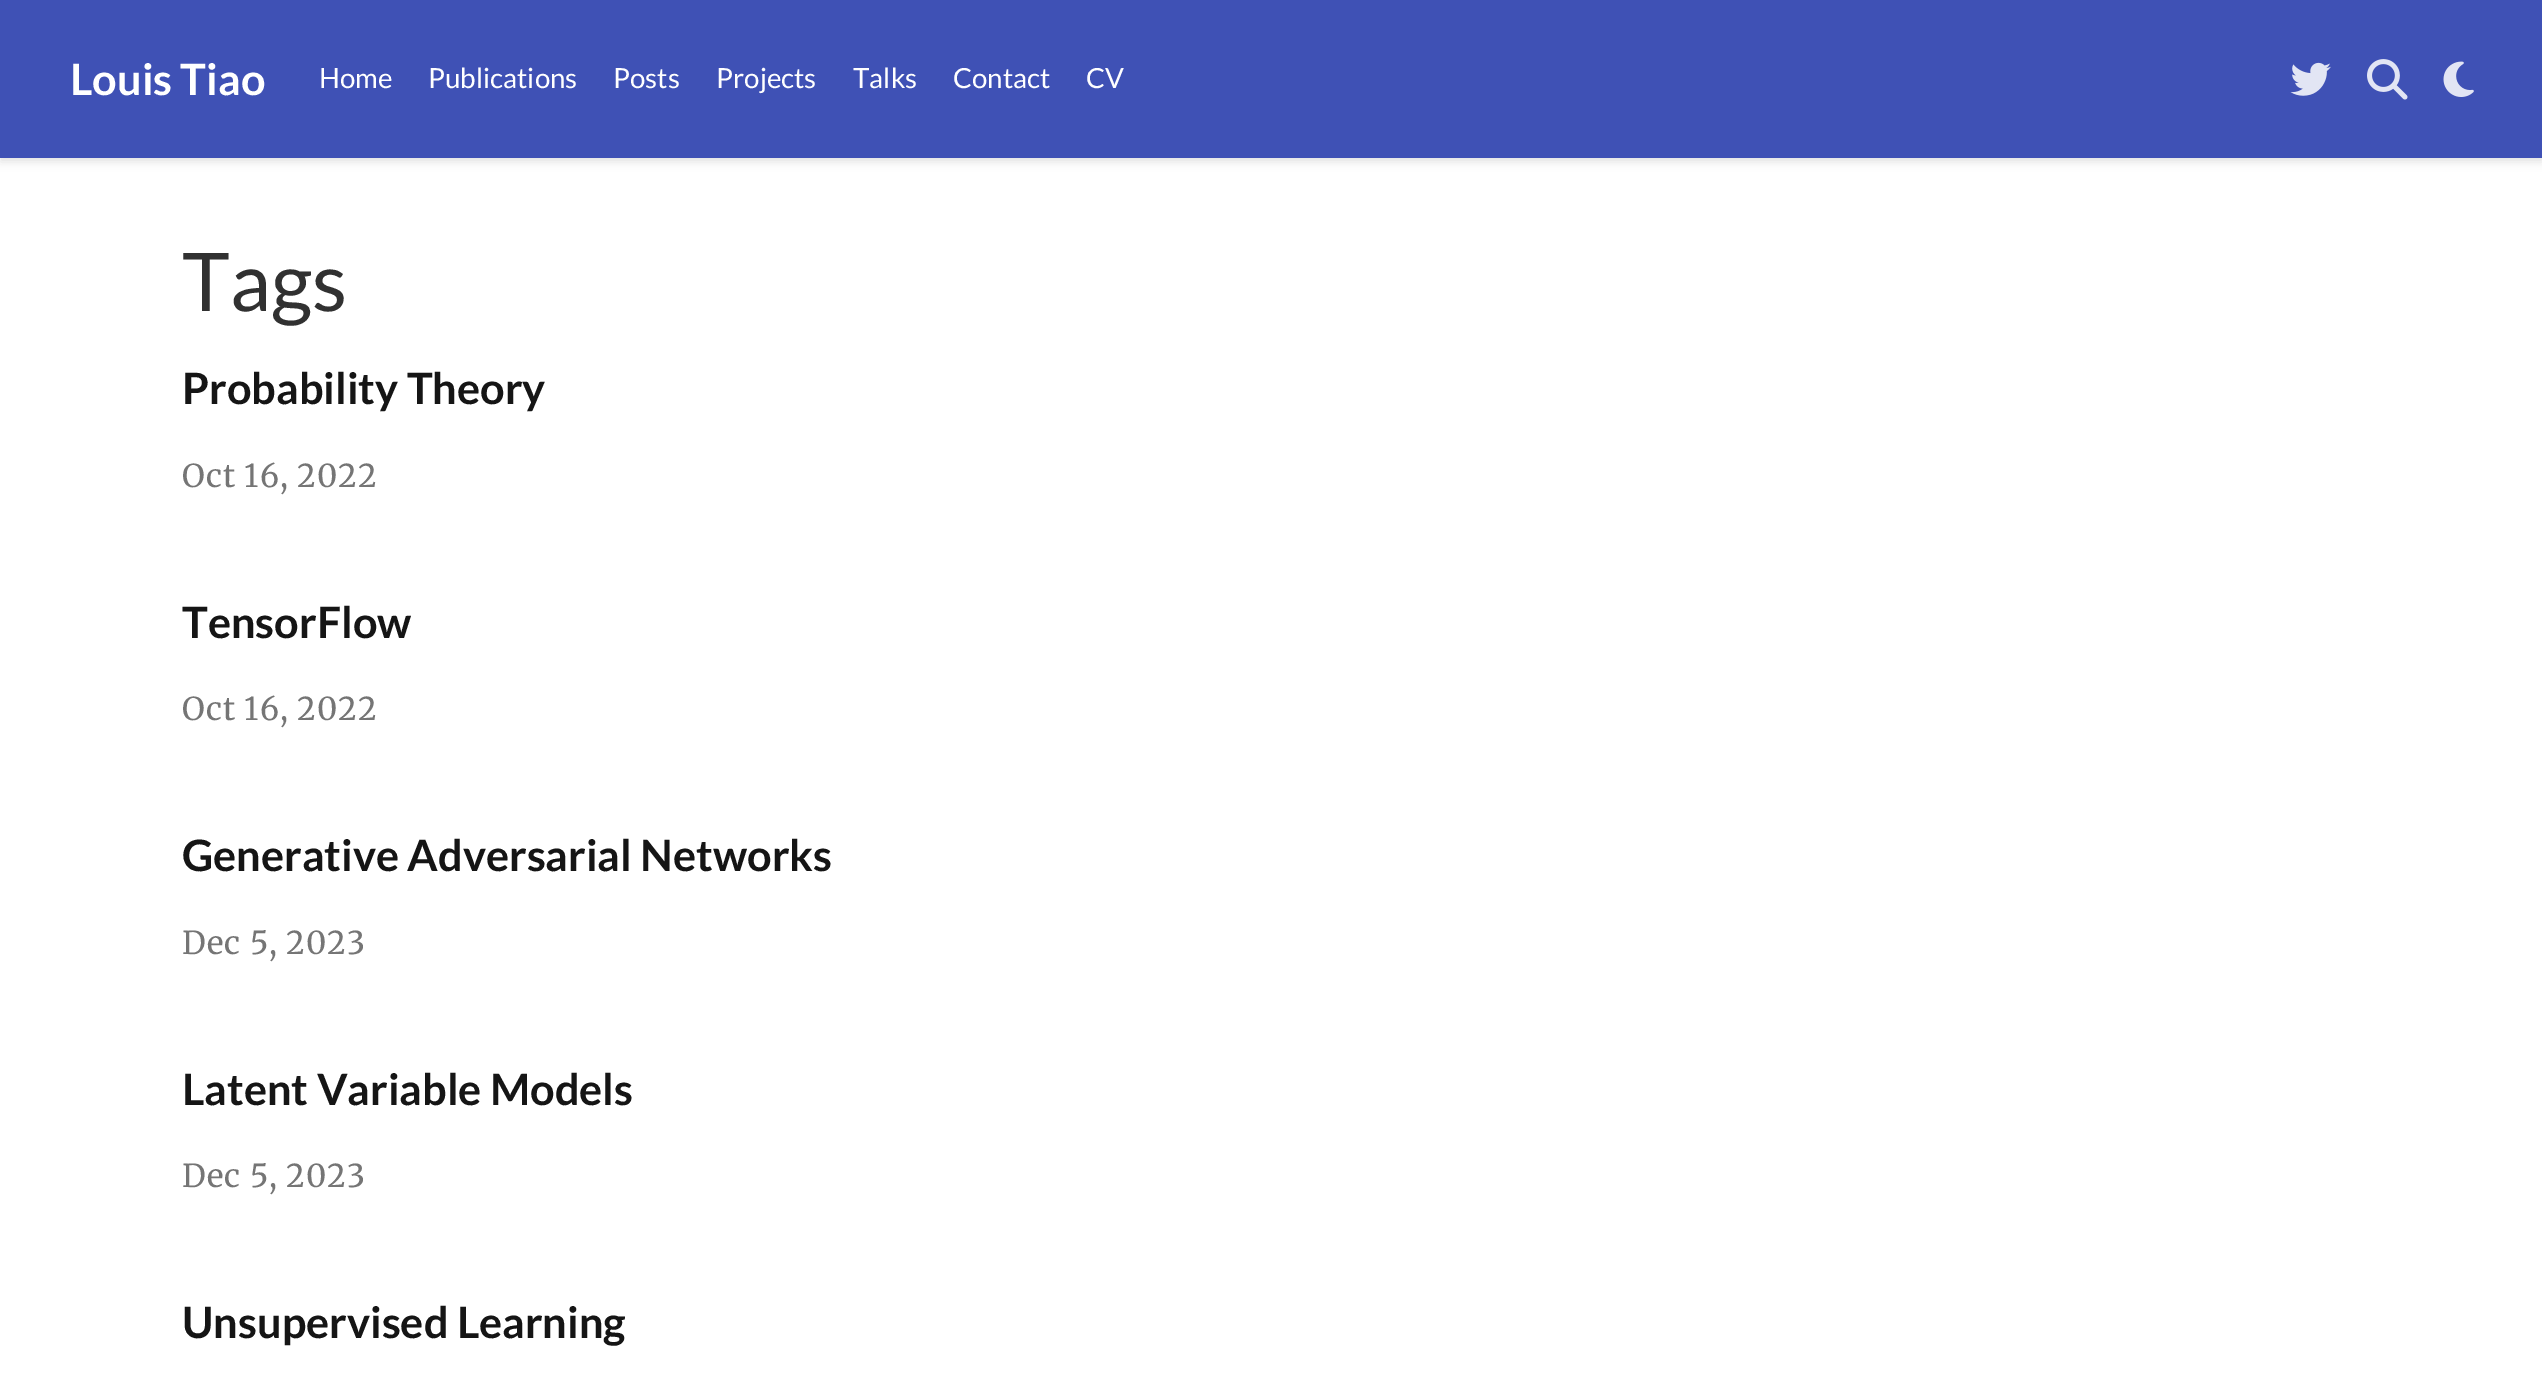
%!PS
<< /PageSize [2542 1382] /PageUsesTransparency true >> setpagedevice
/rgb { 3 { 255 div 3 1 roll } repeat setrgbcolor } def
/font { [ exch dup neg 0 0 3 -1 roll 0 0 ] selectfont } def
/text { moveto show } def
/alpha { dup .setfillconstantalpha .setstrokeconstantalpha } def
/roundrect { 5 dict begin { /r /h /w /y /x } { exch def } forall
  x r add y moveto x w add y 2 copy h add r arct x w add y h add x 1 index r arct
  x y h add x y r arct x y 2 copy exch w add exch r arct closepath end } def
/shadow { 12 dict begin { /a /b /q /h /w /y /x } { exch def } forall gsave /was 0 def
  9 -2 -9 { dup b mul 4 div /e exch def 1 sub .425 mul 2.718 exch exp 1 add a .99 .min exch div /now exch def
    1 1 now sub 1 was sub div sub alpha /was now def
    w h .min e 2 mul add 0 gt { x e sub y e sub w e 2 mul add h e 2 mul add
      q e add b .6 mul add w h .min 2 div e add .min 0 .max roundrect fill } if } for grestore end } def
/picture { 5 dict begin { /h /w /y /x /name } { exch def } forall
  gsave x y translate w h scale
  w h 8 [w 0 0 h 0 0] name (r) file false 3 colorimage grestore end } def
0 .pushpdf14devicefilter
0 1382 translate 1 -1 scale
4 setmiterlimit
255 255 255 rgb
0 0 2542 1382 rectfill
0 0 0 rgb
0 5 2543 157 0 4.5 0.11 shadow
63 81 181 rgb
0 0 2542 158 rectfill
(img_01.rgb) 2290 62 41 34 picture
(img_02.rgb) 2367 59 41 41 picture
(img_03.rgb) 2443 61 31 36 picture
/Lato-Bold 43.25 font
255 255 255 rgb
(Louis Tiao) 70 95 text
/Lato-Regular 27.75 font
(Home) 319 88 text
(Publications) 428 88 text
(Posts) 613 88 text
(Projects) 716 88 text
(Talks) 853 88 text
(Contact) 953 88 text
(CV) 1086 88 text
/Lato-Regular 81 font
49 49 49 rgb
(Tags) 182 311 text
/Lato-Bold 43.25 font
21 21 21 rgb
(Probability Theory) 182 404 text
/Merriweather-Light 31.5 font
117 117 117 rgb
182 487 moveto 1 0 (Oct 16, 2022) ashow
/Lato-Bold 43.25 font
21 21 21 rgb
(TensorFlow) 182 638 text
/Merriweather-Light 31.5 font
117 117 117 rgb
182 720 moveto 1 0 (Oct 16, 2022) ashow
/Lato-Bold 43.25 font
21 21 21 rgb
(Generative Adversarial Networks) 182 871 text
/Merriweather-Light 31.5 font
117 117 117 rgb
182 954 moveto 1 0 (Dec 5, 2023) ashow
/Lato-Bold 43.25 font
21 21 21 rgb
(Latent Variable Models) 182 1105 text
/Merriweather-Light 31.5 font
117 117 117 rgb
182 1187 moveto 1 0 (Dec 5, 2023) ashow
/Lato-Bold 43.25 font
21 21 21 rgb
(Unsupervised Learning) 182 1338 text
.poppdf14devicefilter showpage
